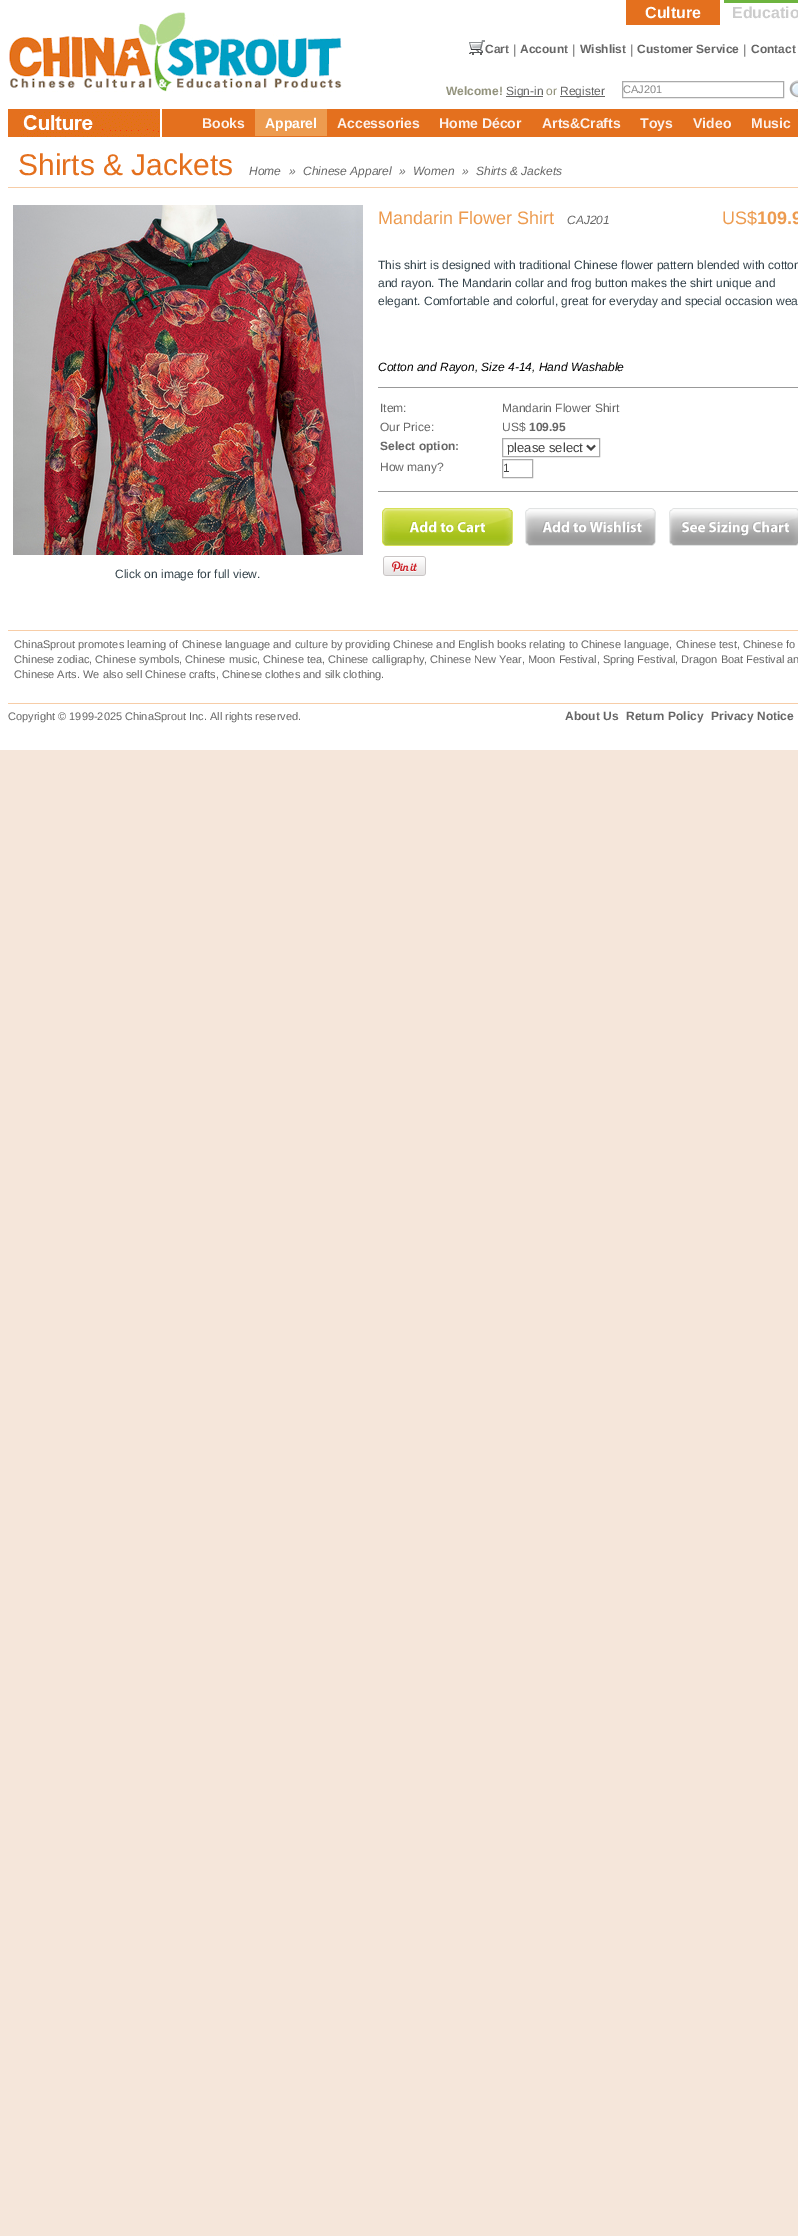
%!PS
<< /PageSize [798 2236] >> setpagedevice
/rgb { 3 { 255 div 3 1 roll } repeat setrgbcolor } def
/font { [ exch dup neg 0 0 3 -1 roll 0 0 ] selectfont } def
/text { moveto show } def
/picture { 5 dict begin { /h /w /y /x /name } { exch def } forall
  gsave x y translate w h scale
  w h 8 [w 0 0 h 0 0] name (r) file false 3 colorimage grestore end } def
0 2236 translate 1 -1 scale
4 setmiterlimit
245 230 218 rgb
0 0 798 2236 rectfill
255 255 255 rgb
0 0 798 750 rectfill
(img_01.rgb) 9 12 333 80 picture
228 112 30 rgb
626 0 94 25 rectfill
109 180 63 rgb
724 0 74 3 rectfill
(img_02.rgb) 469 40 16 15 picture
102 102 102 rgb
506 96 37 1 rectfill
560 96 45 1 rectfill
170 170 170 rgb
622.5 81.5 161 16 rectstroke
(img_03.rgb) 789 80 9 22 picture
228 112 30 rgb
8 109 152 28 rectfill
(img_04.rgb) 20 112 140 25 picture
162 109 636 28 rectfill
237 155 79 rgb
255 109 72 27 rectfill
247 205 167 rgb
8 187 790 1 rectfill
153 153 153 rgb
378 387 420 1 rectfill
170 170 170 rgb
502.5 438.5 97 18 rectstroke
68 68 68 rgb
2 setlinewidth
587 445.5 moveto 4 4 rlineto 4 -4 rlineto stroke
170 170 170 rgb
1 setlinewidth
502.5 459.5 30 18 rectstroke
153 153 153 rgb
378 491 420 1 rectfill
(img_05.rgb) 382 508 131 38 picture
(img_06.rgb) 525 508 131 38 picture
(img_07.rgb) 669 508 129 38 picture
(img_08.rgb) 383 556 43 20 picture
(img_09.rgb) 13 205 350 350 picture
247 205 167 rgb
8 630 790 1 rectfill
8 703 790 1 rectfill
/LiberationSans-Bold 16 font
255 255 255 rgb
(Culture) 645 18 text
204 204 204 rgb
(Educatio) 732 18 text
/LiberationSans-Bold 12 font
102 102 102 rgb
(Cart) 485 53 text
/LiberationSans-Regular 13 font
(|) 513 54 text
/LiberationSans-Bold 12 font
(Account) 520 53 text
/LiberationSans-Regular 13 font
(|) 572 54 text
/LiberationSans-Bold 12 font
(Wishlist) 580 53 text
/LiberationSans-Regular 13 font
(|) 630 54 text
/LiberationSans-Bold 12 font
(Customer Service) 637 53 text
/LiberationSans-Regular 13 font
(|) 743 54 text
/LiberationSans-Bold 12 font
(Contact) 751 53 text
147 147 125 rgb
(Welcome!) 446 95 text
/LiberationSans-Regular 12 font
102 102 102 rgb
(Sign-in) 506 95 text
147 147 125 rgb
(or) 546 95 text
102 102 102 rgb
(Register) 560 95 text
/LiberationSans-Regular 11 font
136 136 136 rgb
(CAJ201) 623 93 text
/LiberationSans-Bold 14 font
253 242 236 rgb
(Books) 202 128 text
255 255 255 rgb
(Apparel) 265 128 text
253 242 236 rgb
(Accessories) 337 128 text
(Home Décor) 439 128 text
(Arts&Crafts) 542 128 text
(Toys) 640 128 text
(Video) 693 128 text
(Music) 751 128 text
/LiberationSans-Regular 30 font
228 112 30 rgb
(Shirts & Jackets) 18 175 text
/LiberationSans-Italic 12 font
102 102 102 rgb
(Home) 249 175 text
(») 289 175 text
(Chinese Apparel) 303 175 text
(») 399 175 text
(Women) 413 175 text
(») 462 175 text
(Shirts & Jackets) 476 175 text
/LiberationSans-Regular 18 font
237 155 79 rgb
(Mandarin Flower Shirt) 378 224 text
/LiberationSans-Italic 12 font
102 102 102 rgb
(CAJ201) 567 224 text
/LiberationSans-Regular 18 font
237 155 79 rgb
(US$) 722 224 text
/LiberationSans-Bold 18 font
(109.9) 757 224 text
/LiberationSans-Regular 12 font
52 67 75 rgb
(This shirt is designed with traditional Chinese flower pattern blended with cotton) 378 269 text
(and rayon. The Mandarin collar and frog button makes the shirt unique and) 378 287 text
(elegant. Comfortable and colorful, great for everyday and special occasion wea) 378 305 text
/LiberationSans-Italic 12 font
0 0 0 rgb
(Cotton and Rayon, Size 4-14, Hand Washable) 378 371 text
/LiberationSans-Regular 12 font
102 102 102 rgb
(Item:) 380 412 text
(Mandarin Flower Shirt) 502 412 text
(Our Price:) 380 431 text
(US$) 502 431 text
/LiberationSans-Bold 12 font
(109.95) 529 431 text
(Select option:) 380 450 text
/LiberationSans-Regular 13 font
68 68 68 rgb
(please select) 507 452 text
/LiberationSans-Regular 12 font
102 102 102 rgb
(How many?) 380 471 text
68 68 68 rgb
(1) 503 472 text
52 67 75 rgb
(Click on image for full view.) 115 578 text
/LiberationSans-Regular 11 font
102 102 102 rgb
(ChinaSprout promotes learning of Chinese language and culture by providing Chinese and English books relating to Chinese language, Chinese test, Chinese fo) 14 648 text
(Chinese zodiac, Chinese symbols, Chinese music, Chinese tea, Chinese calligraphy, Chinese New Year, Moon Festival, Spring Festival, Dragon Boat Festival an) 14 663 text
(Chinese Arts. We also sell Chinese crafts, Chinese clothes and silk clothing.) 14 678 text
(Copyright © 1999-2025 ChinaSprout Inc. All rights reserved.) 8 720 text
/LiberationSans-Bold 12 font
(About Us) 565 720 text
(Return Policy) 626 720 text
(Privacy Notice) 711 720 text
showpage
